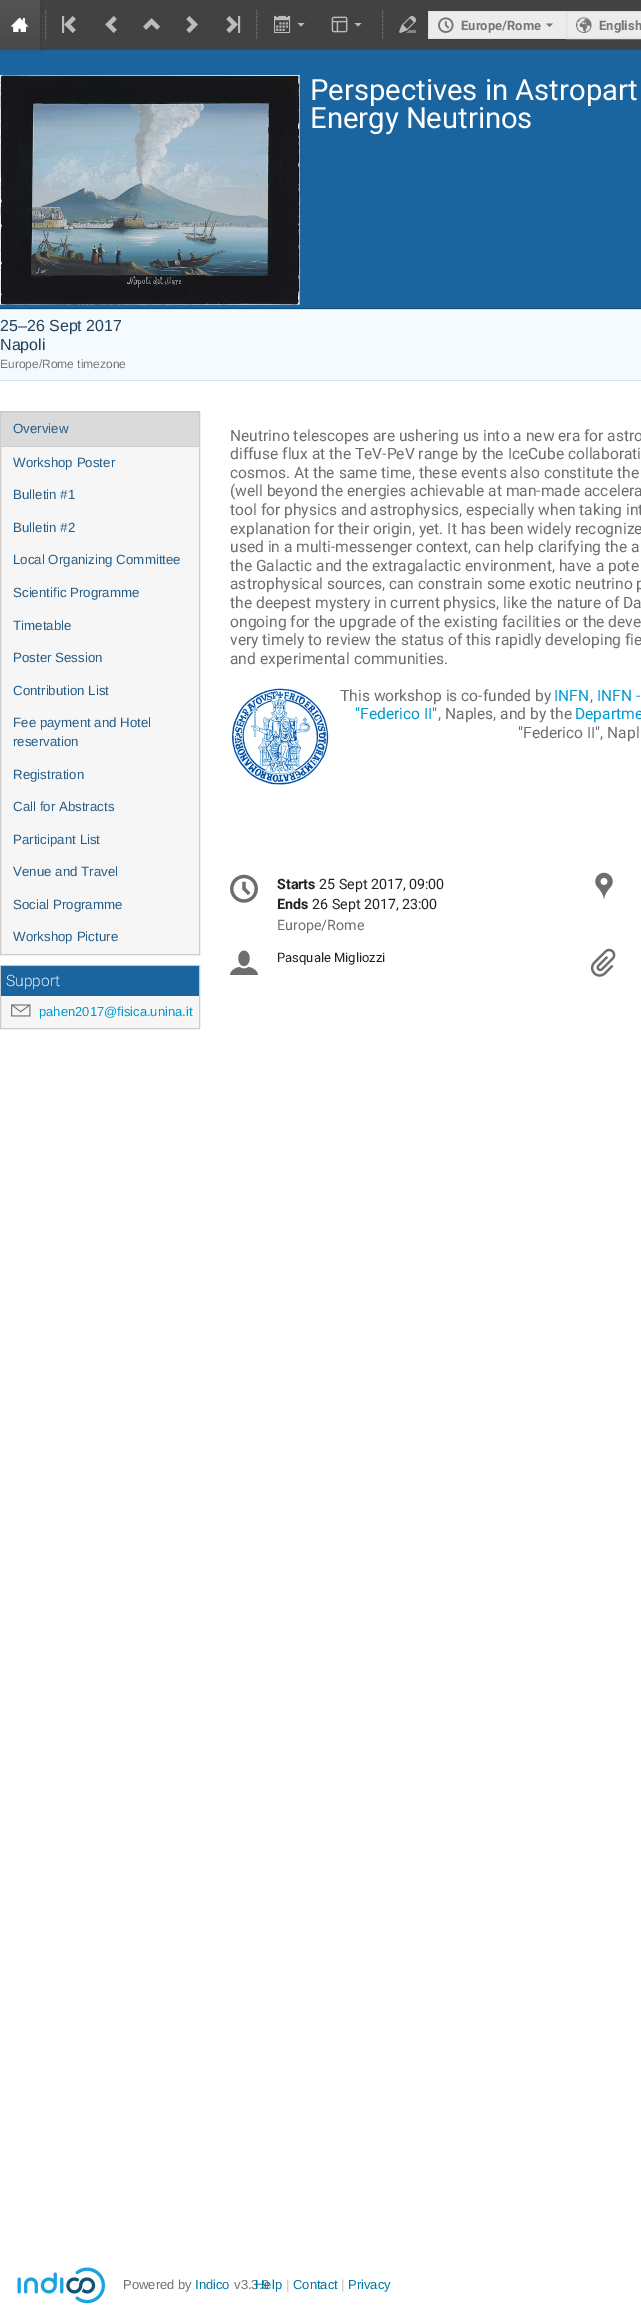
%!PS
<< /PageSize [641 2315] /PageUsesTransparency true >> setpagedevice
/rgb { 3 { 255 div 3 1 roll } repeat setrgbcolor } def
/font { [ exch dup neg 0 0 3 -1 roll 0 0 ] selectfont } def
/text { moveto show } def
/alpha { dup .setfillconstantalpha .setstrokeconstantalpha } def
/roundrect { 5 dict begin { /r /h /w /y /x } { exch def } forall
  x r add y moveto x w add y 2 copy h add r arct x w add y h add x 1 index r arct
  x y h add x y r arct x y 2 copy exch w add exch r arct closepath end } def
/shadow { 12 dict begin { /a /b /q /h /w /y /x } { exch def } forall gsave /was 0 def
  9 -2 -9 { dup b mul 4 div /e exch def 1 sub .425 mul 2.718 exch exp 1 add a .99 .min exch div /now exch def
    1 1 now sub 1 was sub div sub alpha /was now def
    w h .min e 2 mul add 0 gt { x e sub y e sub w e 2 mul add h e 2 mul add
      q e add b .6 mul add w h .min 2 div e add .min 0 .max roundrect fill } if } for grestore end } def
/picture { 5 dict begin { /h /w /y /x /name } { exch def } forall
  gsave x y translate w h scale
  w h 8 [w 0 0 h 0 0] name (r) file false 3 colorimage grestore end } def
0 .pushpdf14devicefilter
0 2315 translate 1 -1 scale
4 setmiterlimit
255 255 255 rgb
0 0 641 2315 rectfill
66 66 66 rgb
40 0 601 50 rectfill
26 100 160 rgb
0 50 641 258 rectfill
20 20 20 rgb
1 1 40 50 0 2 0.1 shadow
gsave 0 0 moveto 40 0 rlineto 0 50 rlineto -40 0 rlineto closepath clip newpath
<< /ShadingType 2 /ColorSpace /DeviceRGB /Coords [20 0 20 50] /Extend [true true] /Function << /FunctionType 2 /Domain [0 1] /C0 [0.333 0.333 0.333] /C1 [0.282 0.282 0.282] /N 1 >> >> shfill grestore
(img_01.rgb) 11 17 18 15 picture
119 119 119 rgb
[1 1] 0 setdash
45.5 10 moveto 0 30 rlineto stroke
(img_02.rgb) 62 15 14 19 picture
(img_03.rgb) 105 16 12 17 picture
(img_04.rgb) 143 18 17 12 picture
(img_05.rgb) 186 16 12 17 picture
(img_06.rgb) 226 15 15 19 picture
256.5 10 moveto 0 30 rlineto stroke
(img_07.rgb) 274 15 17 19 picture
187 187 187 rgb
297.5 23 moveto 3.5 3.5 rlineto 3.5 -3.5 rlineto closepath fill
(img_08.rgb) 331 16 17 17 picture
354.5 23 moveto 3.5 3.5 rlineto 3.5 -3.5 rlineto closepath fill
119 119 119 rgb
382.5 10 moveto 0 30 rlineto stroke
(img_09.rgb) 399 16 18 17 picture
236 236 236 rgb
429 12 137 26 rectfill
223 223 223 rgb
428 11 138 1 rectfill
428 38 138 1 rectfill
428 11 1 28 rectfill
(img_10.rgb) 438 17 16 16 picture
119 119 119 rgb
546 23.5 moveto 3.5 3.5 rlineto 3.5 -3.5 rlineto closepath fill
236 236 236 rgb
566.5 11.5 moveto 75 0 rlineto 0 27 rlineto -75 0 rlineto closepath gsave fill grestore
223 223 223 rgb
[] 0 setdash
stroke
(img_11.rgb) 576 17 16 16 picture
15 76 128 rgb
0 308 641 1 rectfill
(img_12.rgb) 0 75 300 230 picture
245 250 255 rgb
0 310 641 70 rectfill
213 228 241 rgb
0 309 641 1 rectfill
0 380 641 1 rectfill
246 246 246 rgb
1 447 198 507 rectfill
204 204 204 rgb
0.5 411.5 199 543 rectstroke
218 218 218 rgb
1 413 198 33 rectfill
208 208 208 rgb
1 412 198 1 rectfill
1 446 198 1 rectfill
246 246 246 rgb
1 996 198 32 rectfill
204 204 204 rgb
0.5 965.5 199 63 rectstroke
26 100 160 rgb
1 966 198 30 rectfill
(img_13.rgb) 11 1004 20 13 picture
(img_14.rgb) 231 688 98 97 picture
(img_15.rgb) 230 874 28 29 picture
(img_16.rgb) 595 872 18 28 picture
(img_17.rgb) 230 950 28 25 picture
(img_18.rgb) 590 948 26 29 picture
(img_19.rgb) 17 2267 88 37 picture
/Roboto-Bold 13 font
119 119 119 rgb
(Europe/Rome) 461 30 text
(English) 599 30 text
/Roboto-Regular 29.25 font
255 255 255 rgb
(Perspectives in Astropart) 310 100 text
(Energy Neutrinos) 310 128 text
/LiberationSans-Regular 16 font
36 66 90 rgb
(25–26 Sept 2017) 0 331 text
(Napoli) 0 350 text
/LiberationSans-Regular 12 font
119 119 119 rgb
(Europe/Rome timezone) 0 368 text
/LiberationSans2-Regular 13.3 font
39 92 134 rgb
(Overview) 13 433 text
(Workshop Poster) 13 467 text
(Bulletin #1) 13 499 text
(Bulletin #2) 13 532 text
(Local Organizing Committee) 13 564 text
(Scientific Programme) 13 597 text
(Timetable) 13 630 text
(Poster Session) 13 662 text
(Contribution List) 13 695 text
(Fee payment and Hotel) 13 727 text
(reservation) 13 746 text
(Registration) 13 779 text
(Call for Abstracts) 13 811 text
(Participant List) 13 844 text
(Venue and Travel) 13 876 text
(Social Programme) 13 909 text
(Workshop Picture) 13 941 text
/Roboto-Light 15.6 font
243 243 243 rgb
(Support) 6 986 text
/LiberationSans-Regular 13 font
0 153 204 rgb
(pahen2017@fisica.unina.it) 39 1016 text
/Roboto-Regular 15.6 font
110 110 110 rgb
(Neutrino telescopes are ushering us into a new era for astro) 230 441 text
(diffuse flux at the TeV-PeV range by the IceCube collaborati) 230 459 text
(cosmos. At the same time, these events also constitute the) 230 478 text
(\(well beyond the energies achievable at man-made accelera) 230 496 text
(tool for physics and astrophysics, especially when taking int) 230 515 text
(explanation for their origin, yet. It has been widely recognize) 230 534 text
(used in a multi-messenger context, can help clarifying the a) 230 552 text
(the Galactic and the extragalactic environment, have a pote) 230 571 text
(astrophysical sources, can constrain some exotic neutrino p) 230 589 text
(the deepest mystery in current physics, like the nature of Da) 230 608 text
(ongoing for the upgrade of the existing facilities or the deve) 230 627 text
(very timely to review the status of this rapidly developing fie) 230 645 text
(and experimental communities.) 230 664 text
(This workshop is co-funded by) 340 701 text
0 153 204 rgb
(INFN) 554 701 text
(INFN -) 597 701 text
110 110 110 rgb
(,) 590 701 text
0 153 204 rgb
("Federico II") 355 719 text
110 110 110 rgb
(, Naples, and by the) 438 719 text
0 153 204 rgb
(Departme) 575 719 text
110 110 110 rgb
("Federico II", Napl) 518 738 text
/Roboto-Bold 14.25 font
33 33 33 rgb
(Starts) 277 889 text
/Roboto-Regular 14.25 font
(25 Sept 2017, 09:00) 319 889 text
/Roboto-Bold 14.25 font
(Ends) 277 909 text
/Roboto-Regular 14.25 font
(26 Sept 2017, 23:00) 312 909 text
110 110 110 rgb
(Europe/Rome) 277 930 text
/Roboto-Regular 13 font
33 33 33 rgb
(Pasquale Migliozzi) 277 962 text
/LiberationSans-Regular 13 font
110 110 110 rgb
(Powered by) 123 2289 text
0 117 163 rgb
(Indico) 195 2289 text
110 110 110 rgb
(v3.3.9) 234 2289 text
0 117 163 rgb
(Help) 255 2289 text
187 187 187 rgb
(|) 286 2289 text
0 117 163 rgb
(Contact) 293 2289 text
187 187 187 rgb
(|) 341 2289 text
0 117 163 rgb
(Privacy) 348 2289 text
.poppdf14devicefilter showpage
